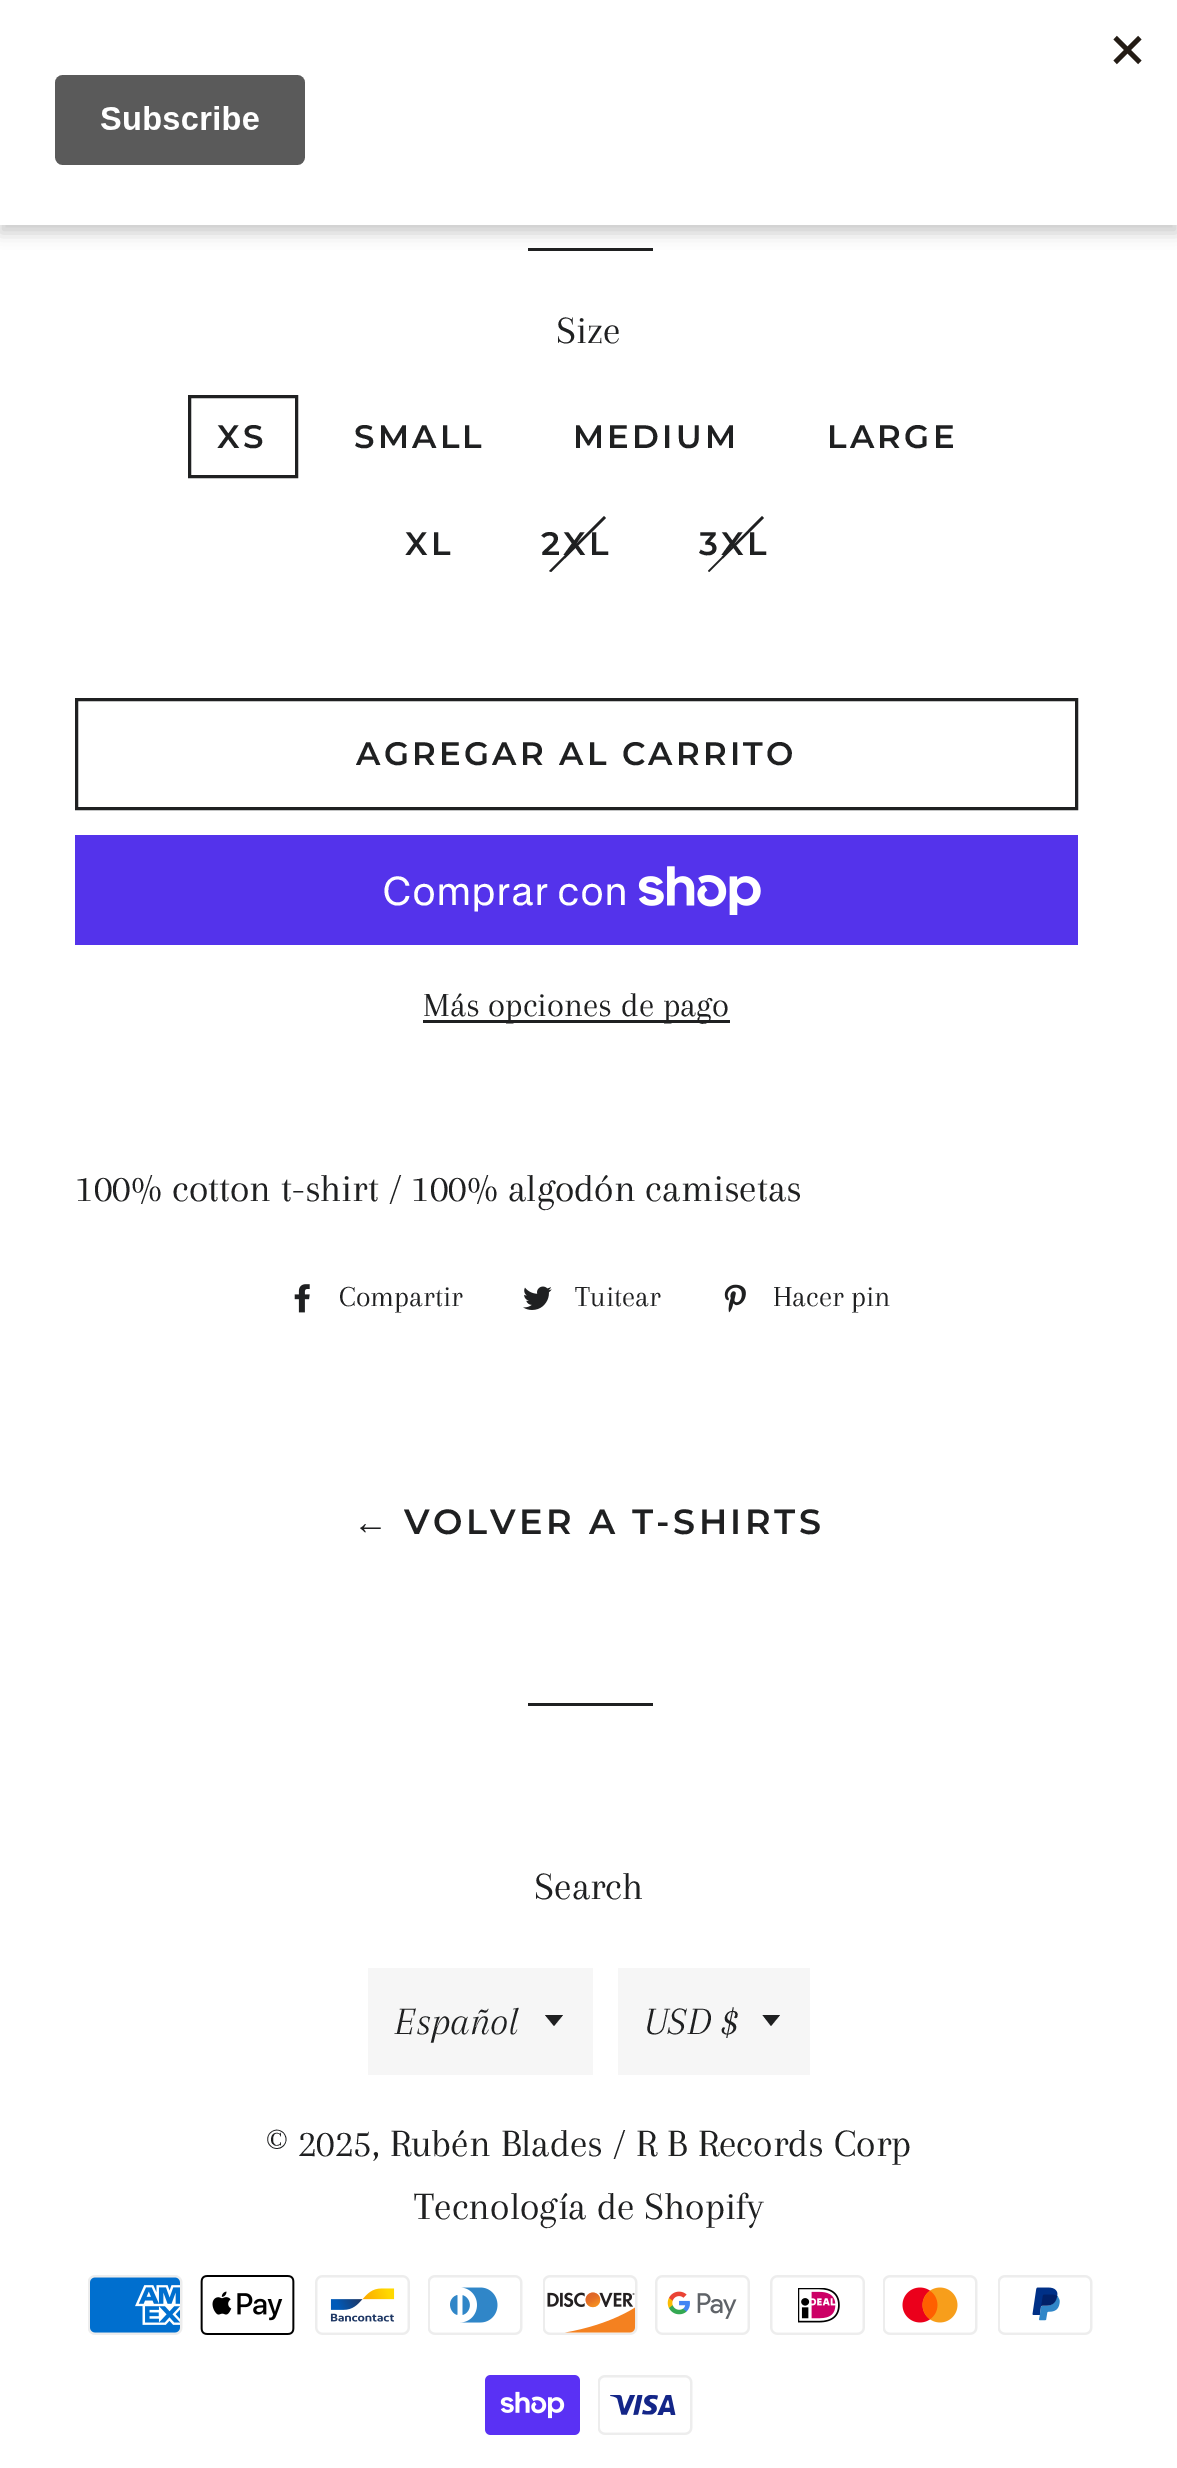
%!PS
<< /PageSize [1177 2468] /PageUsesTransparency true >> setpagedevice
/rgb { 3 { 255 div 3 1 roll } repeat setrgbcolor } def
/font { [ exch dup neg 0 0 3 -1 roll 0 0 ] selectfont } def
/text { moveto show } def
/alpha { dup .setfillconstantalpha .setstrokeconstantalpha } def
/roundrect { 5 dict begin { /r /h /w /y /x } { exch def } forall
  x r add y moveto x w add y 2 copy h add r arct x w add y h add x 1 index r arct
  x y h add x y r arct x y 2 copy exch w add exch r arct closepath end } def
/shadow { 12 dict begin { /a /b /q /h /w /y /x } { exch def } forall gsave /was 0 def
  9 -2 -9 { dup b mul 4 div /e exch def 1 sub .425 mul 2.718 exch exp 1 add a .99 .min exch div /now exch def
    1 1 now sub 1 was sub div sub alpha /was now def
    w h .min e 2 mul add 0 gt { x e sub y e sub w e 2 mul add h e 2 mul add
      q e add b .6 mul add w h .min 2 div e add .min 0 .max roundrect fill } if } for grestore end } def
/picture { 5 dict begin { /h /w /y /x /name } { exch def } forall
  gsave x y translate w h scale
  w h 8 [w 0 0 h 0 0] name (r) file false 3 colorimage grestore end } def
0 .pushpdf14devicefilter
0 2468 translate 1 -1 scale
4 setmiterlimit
255 255 255 rgb
0 0 1177 2468 rectfill
31 32 33 rgb
528 248 125 3 rectfill
0 0 0 rgb
0 8 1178 225 0 7.5 0.2 shadow
255 255 255 rgb
0 0 1177 225 rectfill
(img_01.rgb) 55 35 1087 130 picture
31 32 33 rgb
3 setlinewidth
189.5 396.5 107 80 rectstroke
604 516 moveto 2 2 rlineto -55 54 rlineto -2 -1 rlineto closepath fill
762 516 moveto 2 2 rlineto -55 54 rlineto -1 -1 rlineto closepath fill
76.5 699.5 1000 109 rectstroke
84 51 235 rgb
75 835 1003 110 rectfill
(img_02.rgb) 638 866 123 49 picture
31 32 33 rgb
423 1020 307 3 rectfill
(img_03.rgb) 294 1284 16 29 picture
(img_04.rgb) 523 1286 29 24 picture
(img_05.rgb) 724 1284 22 29 picture
528 1703 125 3 rectfill
246 246 246 rgb
368 1968 225 107 rectfill
31 32 33 rgb
545 2015 moveto 9 11 rlineto 9 -11 rlineto closepath fill
246 246 246 rgb
618 1968 192 107 rectfill
31 32 33 rgb
762.5 2015 moveto 8.5 11 rlineto 9 -11 rlineto closepath fill
(img_06.rgb) 88 2275 95 60 picture
(img_07.rgb) 200 2275 95 60 picture
(img_08.rgb) 315 2275 95 60 picture
(img_09.rgb) 428 2275 95 60 picture
(img_10.rgb) 543 2275 95 60 picture
(img_11.rgb) 655 2275 95 60 picture
(img_12.rgb) 770 2275 95 60 picture
(img_13.rgb) 883 2275 95 60 picture
(img_14.rgb) 998 2275 95 60 picture
(img_15.rgb) 485 2375 95 60 picture
(img_16.rgb) 598 2375 95 60 picture
/Arapey-Regular 40 font
(Size) 556 343 text
/Montserrat-SemiBold 32.5 font
217 448 moveto 3.25 0 (XS) ashow
354 448 moveto 3.25 0 (SMALL) ashow
573 448 moveto 3.25 0 (MEDIUM) ashow
827 448 moveto 3.25 0 (LARGE) ashow
405 555 moveto 3.25 0 (XL) ashow
541 555 moveto 3.25 0 (2XL) ashow
699 555 moveto 3.25 0 (3XL) ashow
356 765 moveto 3.25 0 (AGREGAR AL CARRITO) ashow
/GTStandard-Regular 40 font
255 255 255 rgb
(Comprar con) 382 905 text
/Arapey-Regular 35 font
31 32 33 rgb
(Más opciones de pago) 423 1016 text
/Arapey-Regular 40 font
(100% cotton t-shirt / 100% algodón camisetas) 75 1201 text
/Arapey-Regular 30 font
(Compartir) 339 1306 text
(Tuitear) 575 1306 text
(Hacer pin) 773 1306 text
/LiberationSans-Bold 35 font
353 1534 moveto 3.5 0 (←) ashow
/Montserrat-SemiBold 35 font
404 1534 moveto 3.5 0 (VOLVER A T-SHIRTS) ashow
/Arapey-Regular 40 font
(Search) 534 1899 text
/Arapey-Italic 40 font
(Español) 394 2034 text
(USD $) 644 2034 text
/Arapey-Regular 40 font
(© 2025, Rubén Blades / R B Records Corp) 266 2156 text
(Tecnología de Shopify) 414 2219 text
.poppdf14devicefilter showpage
